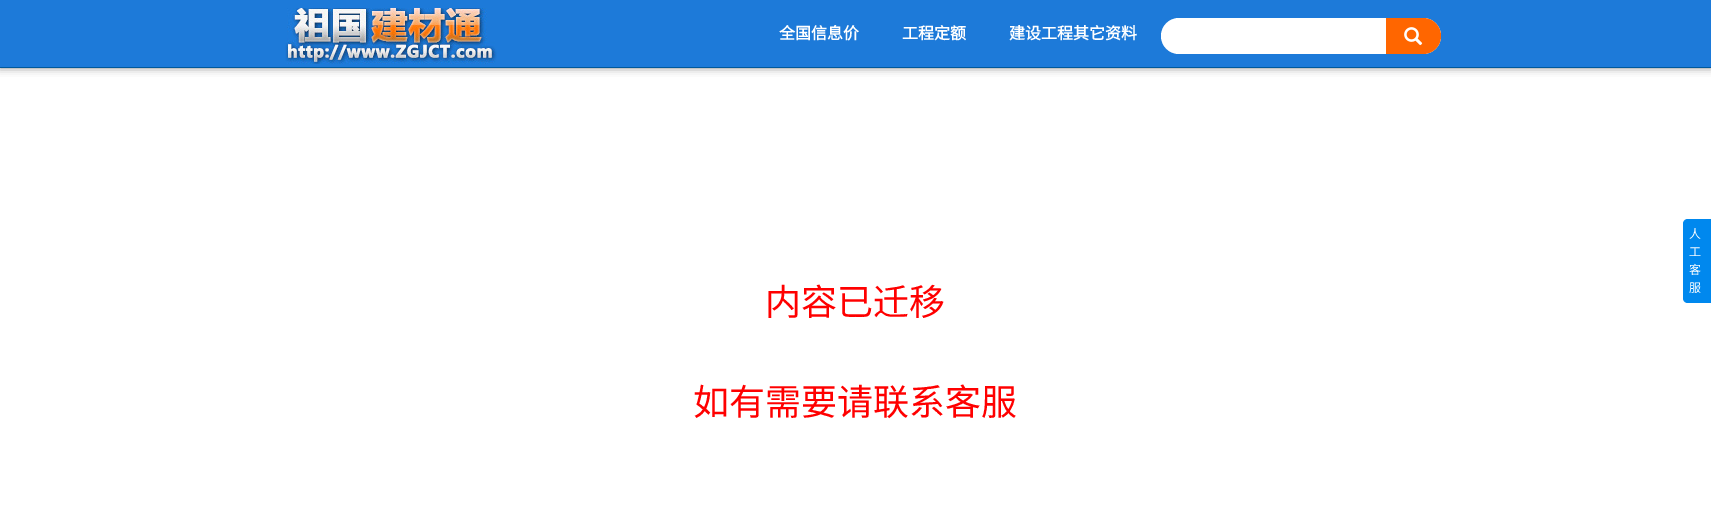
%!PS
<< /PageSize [1711 521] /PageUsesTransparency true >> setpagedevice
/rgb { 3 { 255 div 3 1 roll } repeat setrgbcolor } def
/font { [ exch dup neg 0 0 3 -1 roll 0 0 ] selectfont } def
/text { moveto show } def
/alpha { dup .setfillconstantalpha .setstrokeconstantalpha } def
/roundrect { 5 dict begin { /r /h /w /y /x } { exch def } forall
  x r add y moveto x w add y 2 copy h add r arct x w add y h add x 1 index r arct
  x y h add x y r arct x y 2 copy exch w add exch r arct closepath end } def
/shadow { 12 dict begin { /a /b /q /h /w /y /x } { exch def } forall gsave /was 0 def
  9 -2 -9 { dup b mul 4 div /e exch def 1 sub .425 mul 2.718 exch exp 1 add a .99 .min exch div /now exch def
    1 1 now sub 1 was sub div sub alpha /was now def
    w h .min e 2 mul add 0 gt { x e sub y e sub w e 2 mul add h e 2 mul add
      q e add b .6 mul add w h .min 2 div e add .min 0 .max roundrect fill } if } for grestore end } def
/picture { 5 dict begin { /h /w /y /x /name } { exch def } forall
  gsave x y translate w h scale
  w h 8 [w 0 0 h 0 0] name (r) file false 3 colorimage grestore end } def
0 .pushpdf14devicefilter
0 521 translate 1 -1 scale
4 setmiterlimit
255 255 255 rgb
0 0 1711 521 rectfill
136 136 136 rgb
0 0 1711 68 0 4 1 shadow
29 122 217 rgb
0 0 1711 67 rectfill
0 89 156 rgb
0 67 1711 1 rectfill
(img_01.rgb) 285 8 212 56 picture
255 255 255 rgb
1161 18 280 36 18 roundrect fill
255 102 0 rgb
1386 18 moveto 37 0 rlineto 10 0 18 8 18 18 rcurveto 0 10 -8 18 -18 18 rcurveto -37 0 rlineto closepath fill
(img_02.rgb) 1404 27 19 19 picture
0 136 238 rgb
1688 219 moveto 23 0 rlineto 0 84 rlineto -23 0 rlineto -3 0 -5 -2 -5 -5 rcurveto 0 -74 rlineto 0 -3 2 -5 5 -5 rcurveto closepath fill
/NotoSansCJKSC-Bold 16 font
255 255 255 rgb
(全国信息价) 779 39 text
(工程定额) 902 39 text
(建设工程其它资料) 1009 39 text
/NotoSansCJKSC-Regular 12 font
(人) 1689 238 text
(工) 1689 256 text
(客) 1689 274 text
(服) 1689 292 text
/NotoSansCJKSC-Regular 36 font
255 0 0 rgb
(内容已迁移) 765 315 text
(如有需要请联系客服) 693 415 text
.poppdf14devicefilter showpage
